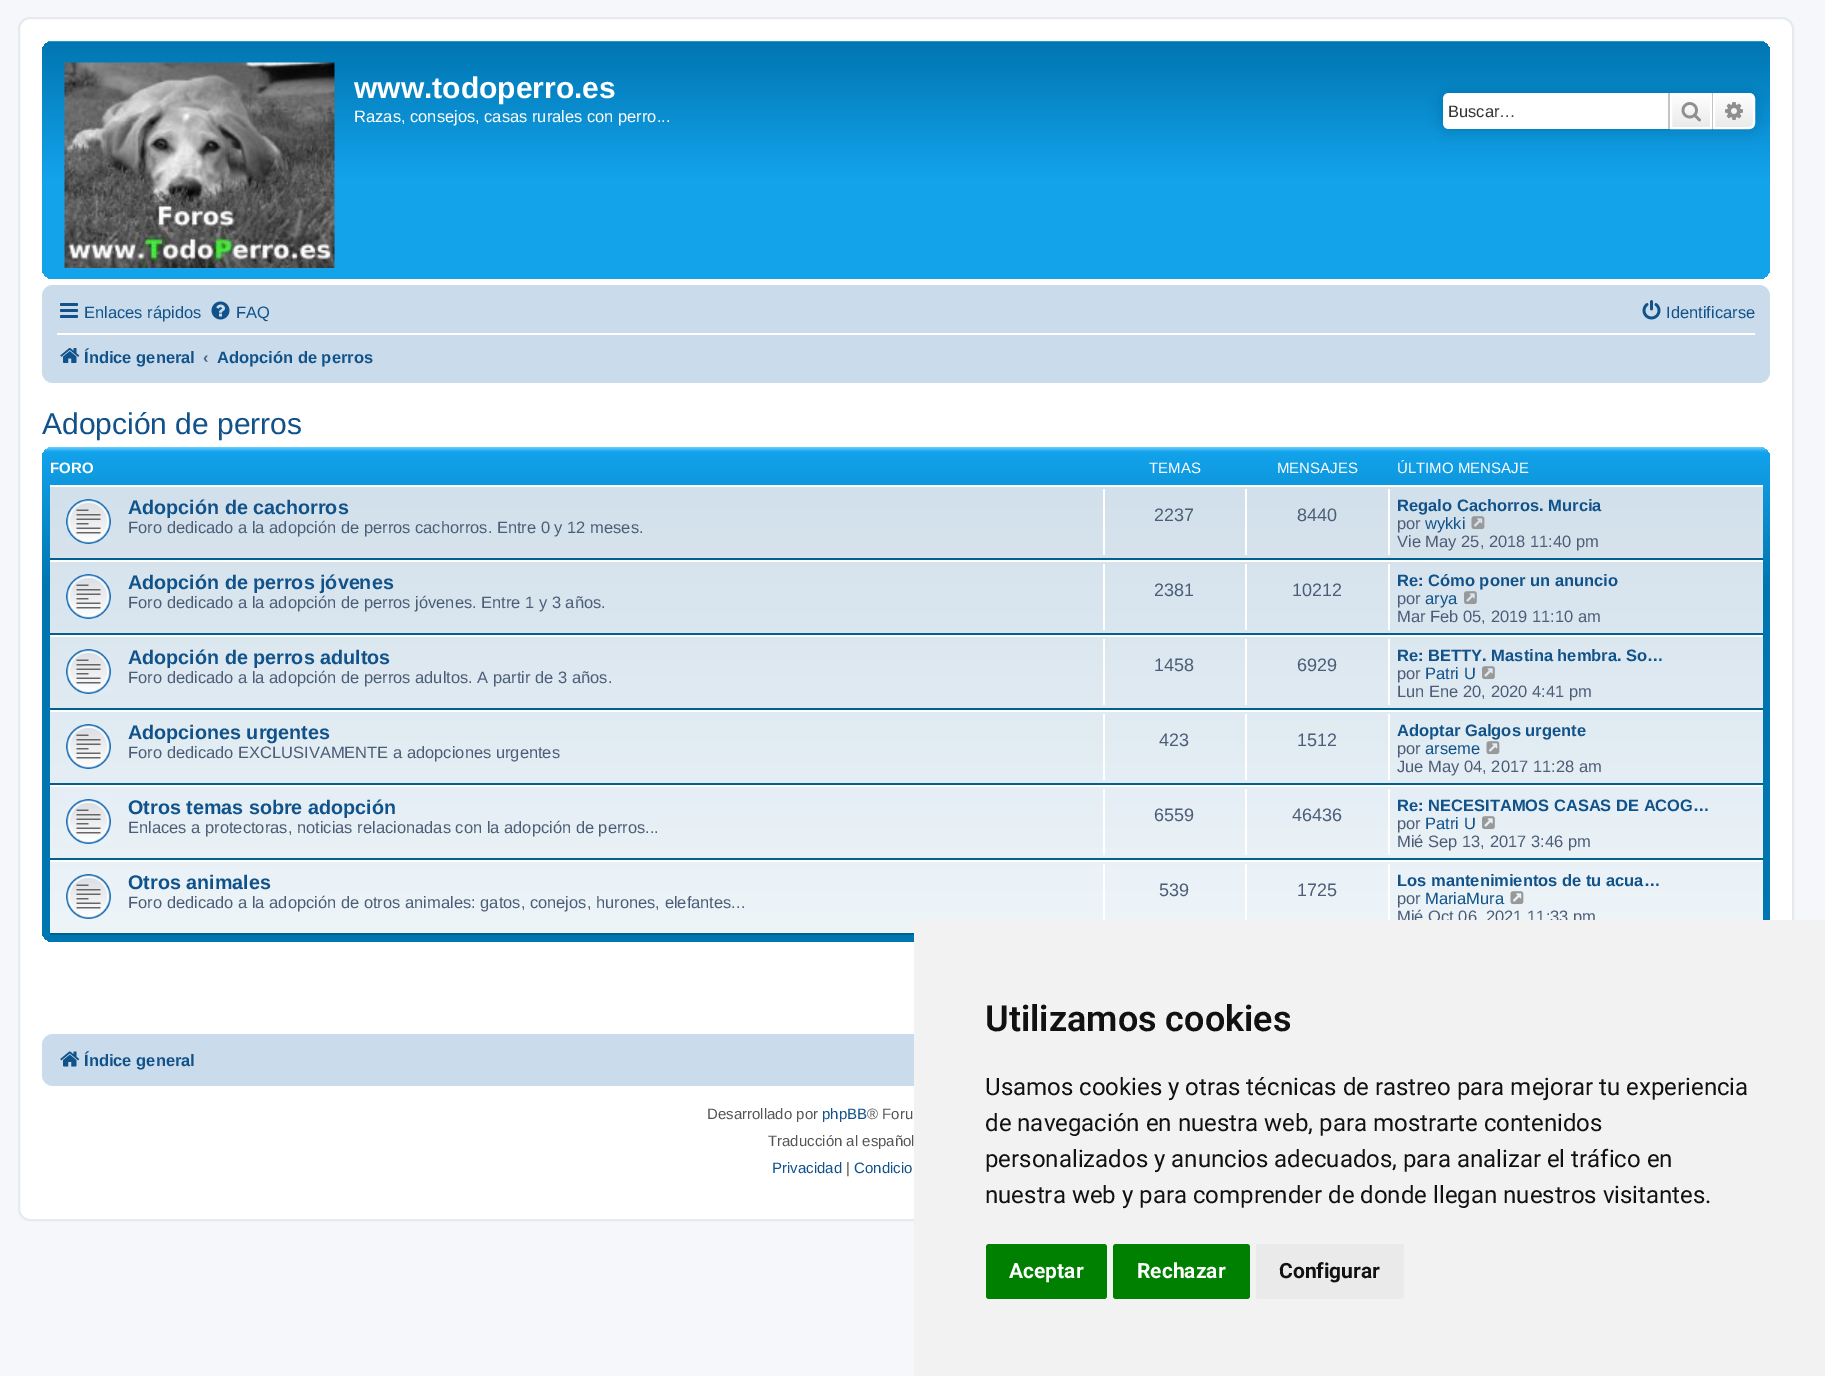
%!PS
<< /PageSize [1825 1376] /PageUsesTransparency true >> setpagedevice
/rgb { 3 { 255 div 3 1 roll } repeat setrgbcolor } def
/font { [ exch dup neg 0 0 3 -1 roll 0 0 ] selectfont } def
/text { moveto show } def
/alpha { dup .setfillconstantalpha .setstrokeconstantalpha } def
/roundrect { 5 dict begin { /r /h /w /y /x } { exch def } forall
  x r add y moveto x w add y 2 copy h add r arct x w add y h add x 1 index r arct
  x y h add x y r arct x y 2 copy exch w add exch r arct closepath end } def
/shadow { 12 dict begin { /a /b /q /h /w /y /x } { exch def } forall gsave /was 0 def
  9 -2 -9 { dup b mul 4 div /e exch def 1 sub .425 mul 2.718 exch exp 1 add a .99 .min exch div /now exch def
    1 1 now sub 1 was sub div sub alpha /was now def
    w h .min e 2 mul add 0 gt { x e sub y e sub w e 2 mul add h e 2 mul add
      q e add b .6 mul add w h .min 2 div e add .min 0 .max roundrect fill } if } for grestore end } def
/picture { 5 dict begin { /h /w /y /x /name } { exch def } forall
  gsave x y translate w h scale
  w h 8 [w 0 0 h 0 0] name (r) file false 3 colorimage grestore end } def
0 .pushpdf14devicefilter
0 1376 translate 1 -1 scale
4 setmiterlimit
245 247 250 rgb
0 0 1825 1376 rectfill
255 255 255 rgb
19 18 1774 1202 11 roundrect gsave fill grestore
230 233 237 rgb
2 setlinewidth
stroke
gsave 42 41 1728 238 11 roundrect clip newpath
<< /ShadingType 2 /ColorSpace /DeviceRGB /Coords [906 40 906 279] /Extend [true true] /Function << /FunctionType 3 /Domain [0 1] /Functions [<< /FunctionType 2 /Domain [0 1] /C0 [0.416 0.808 1] /C1 [0 0.463 0.694] /N 1 >> << /FunctionType 2 /Domain [0 1] /C0 [0 0.463 0.694] /C1 [0.071 0.639 0.922] /N 1 >> << /FunctionType 2 /Domain [0 1] /C0 [0.071 0.639 0.922] /C1 [0.071 0.639 0.922] /N 1 >>] /Bounds [0.01 0.58] /Encode [0 1 0 1 0 1] >> >> shfill grestore
(img_01.rgb) 64 62 271 206 picture
0 117 176 rgb
1443 93 312 36 6 7.5 1 shadow
255 255 255 rgb
1449 93 moveto 219 0 rlineto 0 36 rlineto -219 0 rlineto -3.5 0 -6 -2.5 -6 -6 rcurveto 0 -24 rlineto 0 -3.5 2.5 -6 6 -6 rcurveto closepath fill
gsave 1672 95 moveto 38 0 rlineto 0 32 rlineto -38 0 rlineto closepath clip newpath
<< /ShadingType 2 /ColorSpace /DeviceRGB /Coords [1691 93 1691 129] /Extend [true true] /Function << /FunctionType 2 /Domain [0 1] /C0 [1 1 1] /C1 [0.914 0.914 0.914] /N 1 >> >> shfill grestore
1671 94 40 34 rectstroke
199 195 191 rgb
1712 93 1 36 rectfill
1668 93 2 36 rectfill
(img_02.rgb) 1681 102 20 20 picture
gsave 1714 94 moveto 35 0 rlineto 3 0 5 2 5 5 rcurveto 0 24 rlineto 0 3 -2 5 -5 5 rcurveto -35 0 rlineto closepath clip newpath
<< /ShadingType 2 /ColorSpace /DeviceRGB /Coords [1734 93 1734 129] /Extend [true true] /Function << /FunctionType 2 /Domain [0 1] /C0 [1 1 1] /C1 [0.914 0.914 0.914] /N 1 >> >> shfill grestore
255 255 255 rgb
1714 94 moveto 35 0 rlineto 3 0 5 2 5 5 rcurveto 0 24 rlineto 0 3 -2 5 -5 5 rcurveto -35 0 rlineto closepath stroke
(img_03.rgb) 1725 102 18 18 picture
202 220 235 rgb
42 285 1728 98 11 roundrect fill
(img_04.rgb) 60 303 18 15 picture
(img_05.rgb) 211 301 19 19 picture
(img_06.rgb) 1642 300 19 20 picture
255 255 255 rgb
57 333 1698 2 rectfill
(img_07.rgb) 60 348 20 15 picture
gsave 42 447 1728 495 11 roundrect clip newpath
<< /ShadingType 2 /ColorSpace /DeviceRGB /Coords [906 447 906 942] /Extend [true true] /Function << /FunctionType 3 /Domain [0 1] /Functions [<< /FunctionType 2 /Domain [0 1] /C0 [0.416 0.808 1] /C1 [0.071 0.639 0.922] /N 1 >> << /FunctionType 2 /Domain [0 1] /C0 [0.071 0.639 0.922] /C1 [0 0.463 0.694] /N 1 >> << /FunctionType 2 /Domain [0 1] /C0 [0 0.463 0.694] /C1 [0 0.463 0.694] /N 1 >>] /Bounds [0.01 0.28] /Encode [0 1 0 1 0 1] >> >> shfill grestore
gsave 50 487 moveto 1713 0 rlineto 0 446 rlineto -1713 0 rlineto closepath clip newpath
<< /ShadingType 2 /ColorSpace /DeviceRGB /Coords [906 484 906 935] /Extend [true true] /Function << /FunctionType 2 /Domain [0 1] /C0 [0.824 0.878 0.922] /C1 [0.933 0.961 0.976] /N 1 >> >> shfill grestore
50 485 1713 2 rectfill
0 96 143 rgb
50 558 1713 2 rectfill
(img_08.rgb) 66 499 45 45 picture
255 255 255 rgb
1103 489 2 66 rectfill
1245 489 2 66 rectfill
1388 489 2 66 rectfill
(img_09.rgb) 1471 516 14 14 picture
50 560 1713 2 rectfill
0 96 143 rgb
50 633 1713 2 rectfill
(img_10.rgb) 66 574 45 45 picture
255 255 255 rgb
1103 564 2 66 rectfill
1245 564 2 66 rectfill
1388 564 2 66 rectfill
(img_11.rgb) 1464 591 13 14 picture
50 635 1713 2 rectfill
0 96 143 rgb
50 708 1713 2 rectfill
(img_12.rgb) 66 649 45 45 picture
255 255 255 rgb
1103 639 2 66 rectfill
1245 639 2 66 rectfill
1388 639 2 66 rectfill
(img_13.rgb) 1482 666 13 14 picture
50 710 1713 2 rectfill
0 96 143 rgb
50 783 1713 2 rectfill
(img_14.rgb) 66 724 45 45 picture
255 255 255 rgb
1103 714 2 66 rectfill
1245 714 2 66 rectfill
1388 714 2 66 rectfill
(img_15.rgb) 1486 741 14 14 picture
50 785 1713 2 rectfill
0 96 143 rgb
50 858 1713 2 rectfill
(img_16.rgb) 66 799 45 45 picture
255 255 255 rgb
1103 789 2 66 rectfill
1245 789 2 66 rectfill
1388 789 2 66 rectfill
(img_17.rgb) 1482 816 13 14 picture
50 860 1713 2 rectfill
0 96 143 rgb
50 933 864 2 rectfill
(img_18.rgb) 66 874 45 45 picture
255 255 255 rgb
1103 864 2 56 rectfill
1245 864 2 56 rectfill
1388 864 2 56 rectfill
(img_19.rgb) 1510 891 14 14 picture
202 220 235 rgb
42 1034 1728 52 11 roundrect fill
(img_20.rgb) 60 1051 20 16 picture
/LiberationSans-Bold 30 font
255 255 255 rgb
(www.todoperro.es) 354 98 text
/LiberationSans-Regular 16.5 font
(Razas, consejos, casas rurales con perro...) 354 122 text
51 51 51 rgb
(Buscar…) 1448 117 text
16 82 137 rgb
(Enlaces rápidos) 84 318 text
(FAQ) 236 318 text
(Identificarse) 1666 318 text
/LiberationSans-Bold 16.5 font
(Índice general) 84 363 text
83 100 130 rgb
(‹) 203 363 text
16 82 137 rgb
(Adopción de perros) 217 363 text
/LiberationSans-Regular 30 font
(Adopción de perros) 42 434 text
/LiberationSans-Bold 15 font
255 255 255 rgb
(FORO) 50 473 text
/LiberationSans-Regular 15 font
(TEMAS) 1149 473 text
(MENSAJES) 1277 473 text
(ÚLTIMO MENSAJE) 1397 473 text
/LiberationSans-Bold 19.75 font
16 82 137 rgb
(Adopción de cachorros) 128 514 text
/LiberationSans-Regular 16.5 font
76 93 119 rgb
(Foro dedicado a la adopción de perros cachorros. Entre 0 y 12 meses.) 128 533 text
/LiberationSans-Regular 18 font
(2237) 1154 521 text
(8440) 1297 521 text
/LiberationSans-Bold 16.5 font
16 82 137 rgb
(Regalo Cachorros. Murcia) 1397 511 text
/LiberationSans-Regular 16.5 font
76 93 119 rgb
(por) 1397 529 text
16 82 137 rgb
(wykki) 1425 529 text
76 93 119 rgb
(Vie May 25, 2018 11:40 pm) 1397 547 text
/LiberationSans-Bold 19.75 font
16 82 137 rgb
(Adopción de perros jóvenes) 128 589 text
/LiberationSans-Regular 16.5 font
76 93 119 rgb
(Foro dedicado a la adopción de perros jóvenes. Entre 1 y 3 años.) 128 608 text
/LiberationSans-Regular 18 font
(2381) 1154 596 text
(10212) 1292 596 text
/LiberationSans-Bold 16.5 font
16 82 137 rgb
(Re: Cómo poner un anuncio) 1397 586 text
/LiberationSans-Regular 16.5 font
76 93 119 rgb
(por) 1397 604 text
16 82 137 rgb
(arya) 1425 604 text
76 93 119 rgb
(Mar Feb 05, 2019 11:10 am) 1397 622 text
/LiberationSans-Bold 19.75 font
16 82 137 rgb
(Adopción de perros adultos) 128 664 text
/LiberationSans-Regular 16.5 font
76 93 119 rgb
(Foro dedicado a la adopción de perros adultos. A partir de 3 años.) 128 683 text
/LiberationSans-Regular 18 font
(1458) 1154 671 text
(6929) 1297 671 text
/LiberationSans-Bold 16.5 font
16 82 137 rgb
(Re: BETTY. Mastina hembra. So…) 1397 661 text
/LiberationSans-Regular 16.5 font
76 93 119 rgb
(por) 1397 679 text
16 82 137 rgb
(Patri U) 1425 679 text
76 93 119 rgb
(Lun Ene 20, 2020 4:41 pm) 1397 697 text
/LiberationSans-Bold 19.75 font
16 82 137 rgb
(Adopciones urgentes) 128 739 text
/LiberationSans-Regular 16.5 font
76 93 119 rgb
(Foro dedicado EXCLUSIVAMENTE a adopciones urgentes) 128 758 text
/LiberationSans-Regular 18 font
(423) 1159 746 text
(1512) 1297 746 text
/LiberationSans-Bold 16.5 font
16 82 137 rgb
(Adoptar Galgos urgente) 1397 736 text
/LiberationSans-Regular 16.5 font
76 93 119 rgb
(por) 1397 754 text
16 82 137 rgb
(arseme) 1425 754 text
76 93 119 rgb
(Jue May 04, 2017 11:28 am) 1397 772 text
/LiberationSans-Bold 19.75 font
16 82 137 rgb
(Otros temas sobre adopción) 128 814 text
/LiberationSans-Regular 16.5 font
76 93 119 rgb
(Enlaces a protectoras, noticias relacionadas con la adopción de perros...) 128 833 text
/LiberationSans-Regular 18 font
(6559) 1154 821 text
(46436) 1292 821 text
/LiberationSans-Bold 16.5 font
16 82 137 rgb
(Re: NECESITAMOS CASAS DE ACOG…) 1397 811 text
/LiberationSans-Regular 16.5 font
76 93 119 rgb
(por) 1397 829 text
16 82 137 rgb
(Patri U) 1425 829 text
76 93 119 rgb
(Mié Sep 13, 2017 3:46 pm) 1397 847 text
/LiberationSans-Bold 19.75 font
16 82 137 rgb
(Otros animales) 128 889 text
/LiberationSans-Regular 16.5 font
76 93 119 rgb
(Foro dedicado a la adopción de otros animales: gatos, conejos, hurones, elefantes...) 128 908 text
/LiberationSans-Regular 18 font
(539) 1159 896 text
(1725) 1297 896 text
/LiberationSans-Bold 16.5 font
16 82 137 rgb
(Los mantenimientos de tu acua…) 1397 886 text
/LiberationSans-Regular 16.5 font
76 93 119 rgb
(por) 1397 904 text
16 82 137 rgb
(MariaMura) 1425 904 text
76 93 119 rgb
(Mié Oct 06, 2021 11:33 pm) 1397 922 text
/LiberationSans-Bold 16.5 font
16 82 137 rgb
(Índice general) 84 1066 text
/LiberationSans-Regular 15 font
85 85 85 rgb
(Desarrollado por) 707 1119 text
16 82 137 rgb
(phpBB) 822 1119 text
85 85 85 rgb
(® Foru) 867 1119 text
(Traducción al español) 768 1146 text
16 82 137 rgb
(Privacidad) 772 1173 text
85 85 85 rgb
(|) 846 1173 text
16 82 137 rgb
(Condicio) 854 1173 text
242 242 242 rgb
914 920 911 456 rectfill
/Roboto-SemiBold 36 font
17 17 17 rgb
(Utilizamos cookies) 985 1031 text
/Roboto-Regular 24 font
(Usamos cookies y otras técnicas de rastreo para mejorar tu experiencia) 985 1095 text
(de navegación en nuestra web, para mostrarte contenidos) 985 1131 text
(personalizados y anuncios adecuados, para analizar el tráfico en) 985 1167 text
(nuestra web y para comprender de donde llegan nuestros visitantes.) 985 1203 text
0 128 0 rgb
986 1244 121 55 3 roundrect fill
/Roboto-Bold 21 font
255 255 255 rgb
(Aceptar) 1009 1278 text
0 128 0 rgb
1113 1244 137 55 3 roundrect fill
255 255 255 rgb
(Rechazar) 1137 1278 text
234 234 234 rgb
1256 1244 148 55 3 roundrect fill
17 17 17 rgb
(Configurar) 1279 1278 text
.poppdf14devicefilter showpage
